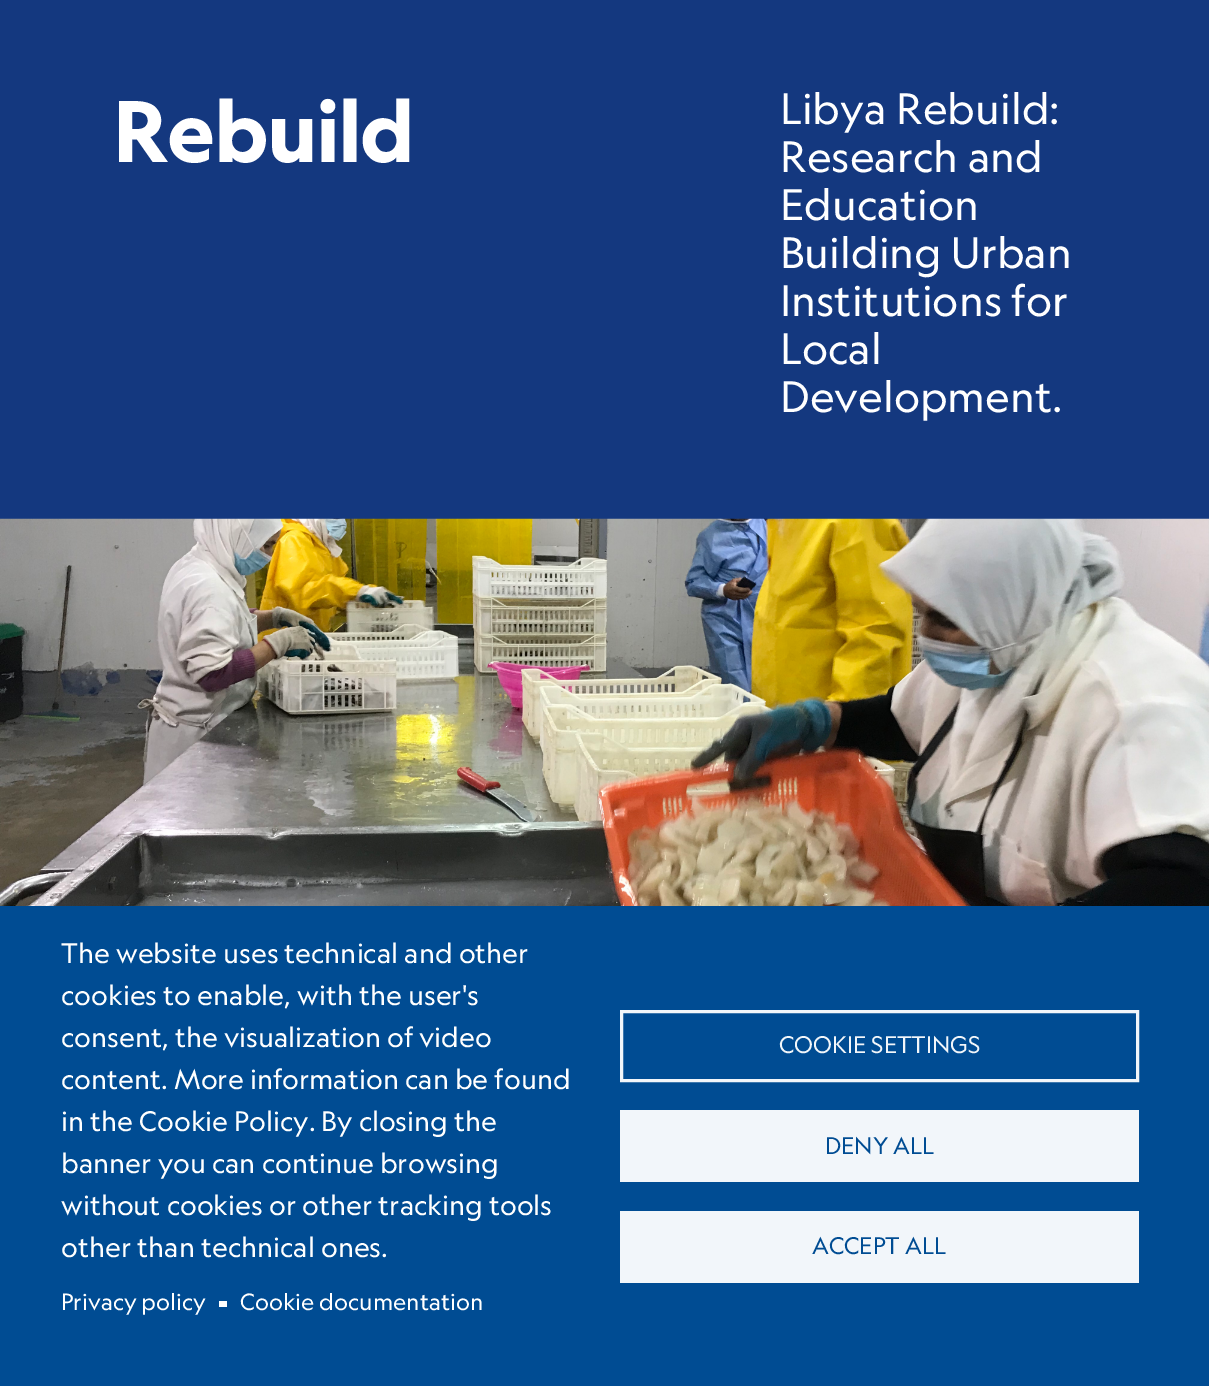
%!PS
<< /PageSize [1209 1386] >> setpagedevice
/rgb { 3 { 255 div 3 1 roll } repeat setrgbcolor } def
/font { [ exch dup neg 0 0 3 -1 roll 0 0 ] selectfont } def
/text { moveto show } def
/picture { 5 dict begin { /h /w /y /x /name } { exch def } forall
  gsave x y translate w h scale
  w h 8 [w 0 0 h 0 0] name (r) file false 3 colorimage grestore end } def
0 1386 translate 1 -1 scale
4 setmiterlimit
20 56 127 rgb
0 0 1209 1386 rectfill
(img_01.rgb) 0 518 1209 388 picture
0 76 147 rgb
0 906 1209 480 rectfill
255 255 255 rgb
219 1301 8 6 rectfill
242 246 250 rgb
3 setlinewidth
621.5 1011.5 516 69 rectstroke
620 1110 519 72 rectfill
620 1211 519 72 rectfill
/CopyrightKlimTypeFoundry-Bold 83.5 font
255 255 255 rgb
113 162 moveto -1.75 0 (Rebuild) ashow
/CopyrightKlimTypeFoundry-Regular 42 font
(Libya Rebuild:) 780 124 text
(Research and) 780 172 text
(Education) 780 220 text
(Building Urban) 780 268 text
(Institutions for) 780 316 text
(Local) 780 364 text
(Development.) 780 412 text
/CopyrightKlimTypeFoundry-Regular 27 font
(The website uses technical and other) 61 963 text
(cookies to enable, with the user's) 61 1005 text
(consent, the visualization of video) 61 1047 text
(content. More information can be found) 61 1089 text
(in the Cookie Policy. By closing the) 61 1131 text
(banner you can continue browsing) 61 1173 text
(without cookies or other tracking tools) 61 1215 text
(other than technical ones.) 61 1257 text
/CopyrightKlimTypeFoundry-Regular 22.5 font
(Privacy policy) 61 1310 text
(Cookie documentation) 240 1310 text
/CopyrightKlimTypeFoundry-Regular 23 font
242 246 250 rgb
(COOKIE SETTINGS) 779 1053 text
0 76 147 rgb
(DENY ALL) 825 1154 text
(ACCEPT ALL) 812 1254 text
showpage
